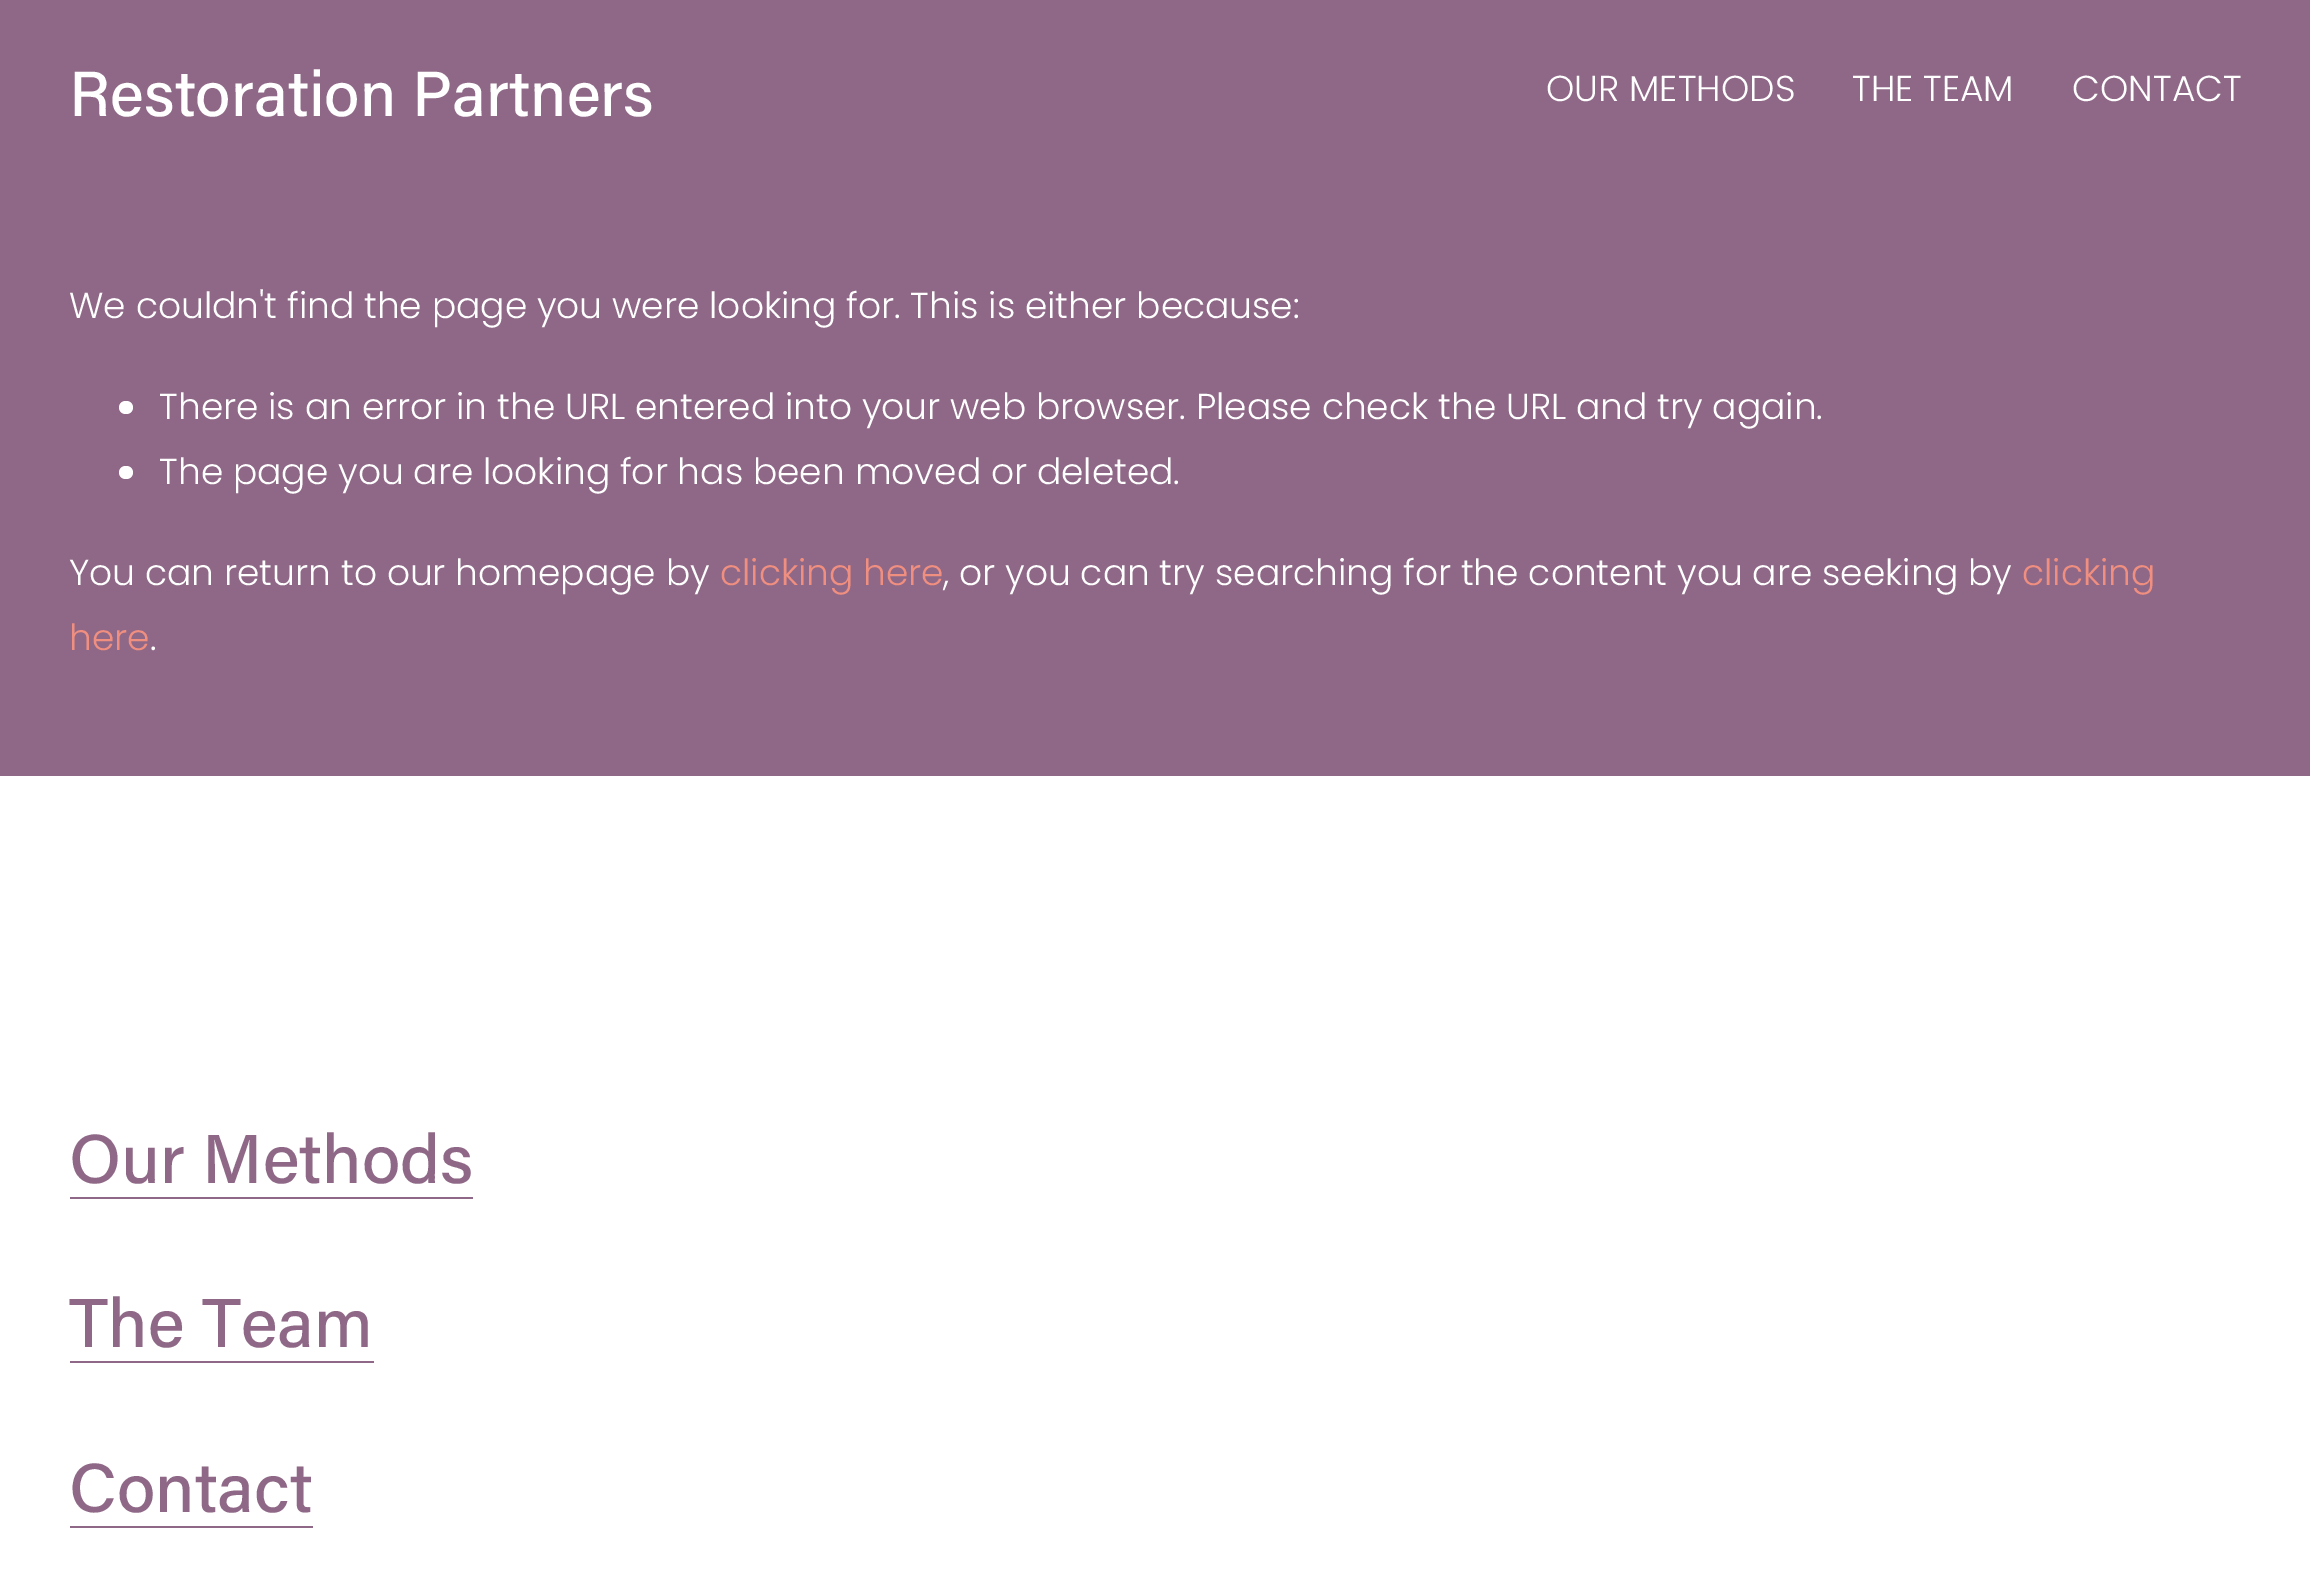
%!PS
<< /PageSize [2310 1586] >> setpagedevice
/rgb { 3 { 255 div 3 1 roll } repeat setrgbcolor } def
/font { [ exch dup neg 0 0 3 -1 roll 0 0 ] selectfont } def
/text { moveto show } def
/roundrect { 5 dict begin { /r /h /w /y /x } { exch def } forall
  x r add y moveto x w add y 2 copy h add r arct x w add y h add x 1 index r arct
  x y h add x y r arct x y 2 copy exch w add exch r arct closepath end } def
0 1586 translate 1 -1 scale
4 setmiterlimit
143 104 135 rgb
0 0 2310 1586 rectfill
255 255 255 rgb
119 401 14 13 6.5 roundrect fill
119 466 14 13 6.5 roundrect fill
0 776 2310 810 rectfill
143 104 135 rgb
70 1197 403 2 rectfill
70 1361 304 2 rectfill
70 1526 243 2 rectfill
/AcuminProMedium-Medium 63.75 font
255 255 255 rgb
(Restoration Partners) 69 116 text
/Poppins-Light 36 font
(OUR METHODS) 1546 101 text
(THE TEAM) 1852 101 text
(CONTACT) 2072 101 text
(We couldn't find the page you were looking for. This is either because:) 69 318 text
(There is an error in the URL entered into your web browser. Please check the URL and try again.) 159 419 text
(The page you are looking for has been moved or deleted.) 159 484 text
(You can return to our homepage by) 69 585 text
240 142 128 rgb
(clicking here) 720 585 text
255 255 255 rgb
(, or you can try searching for the content you are seeking by) 943 585 text
240 142 128 rgb
(clicking) 2022 585 text
(here) 69 650 text
255 255 255 rgb
(.) 150 650 text
/AcuminProMedium-Medium 69.25 font
143 104 135 rgb
(Our Methods) 69 1183 text
(The Team) 69 1347 text
(Contact) 69 1512 text
showpage
